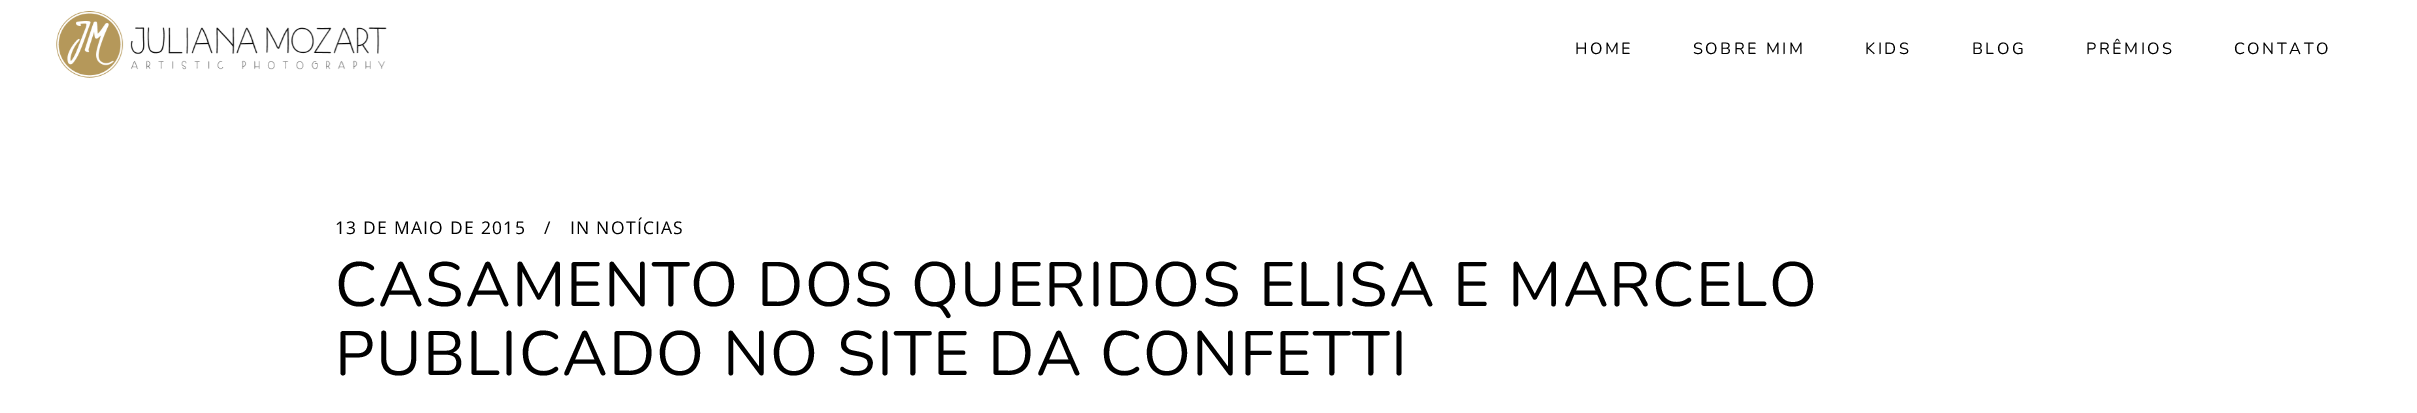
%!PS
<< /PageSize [2417 413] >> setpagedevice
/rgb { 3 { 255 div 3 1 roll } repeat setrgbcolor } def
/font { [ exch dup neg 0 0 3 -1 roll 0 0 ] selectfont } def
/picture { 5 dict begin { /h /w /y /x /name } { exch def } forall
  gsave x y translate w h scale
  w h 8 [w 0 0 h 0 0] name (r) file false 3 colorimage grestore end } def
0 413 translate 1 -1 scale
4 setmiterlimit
255 255 255 rgb
0 0 2417 413 rectfill
(img_01.rgb) 56 11 331 67 picture
/Nunito-Regular 16.25 font
0 0 0 rgb
1575 54 moveto 2.5 0 (HOME) ashow
1693 54 moveto 2.5 0 (SOBRE MIM) ashow
1865 54 moveto 2.5 0 (KIDS) ashow
1972 54 moveto 2.5 0 (BLOG) ashow
2086 54 moveto 2.5 0 (PRÊMIOS) ashow
2234 54 moveto 2.5 0 (CONTATO) ashow
/OpenSans-Regular 17.5 font
335 234 moveto 1.25 0 (13 DE MAIO DE 2015) ashow
544 234 moveto 1.25 0 (/) ashow
570 234 moveto 1.25 0 (IN NOTÍCIAS) ashow
/Nunito-Regular 62.5 font
335 306 moveto 1.25 0 (CASAMENTO DOS QUERIDOS ELISA E MARCELO) ashow
335 375 moveto 1.25 0 (PUBLICADO NO SITE DA CONFETTI) ashow
showpage
